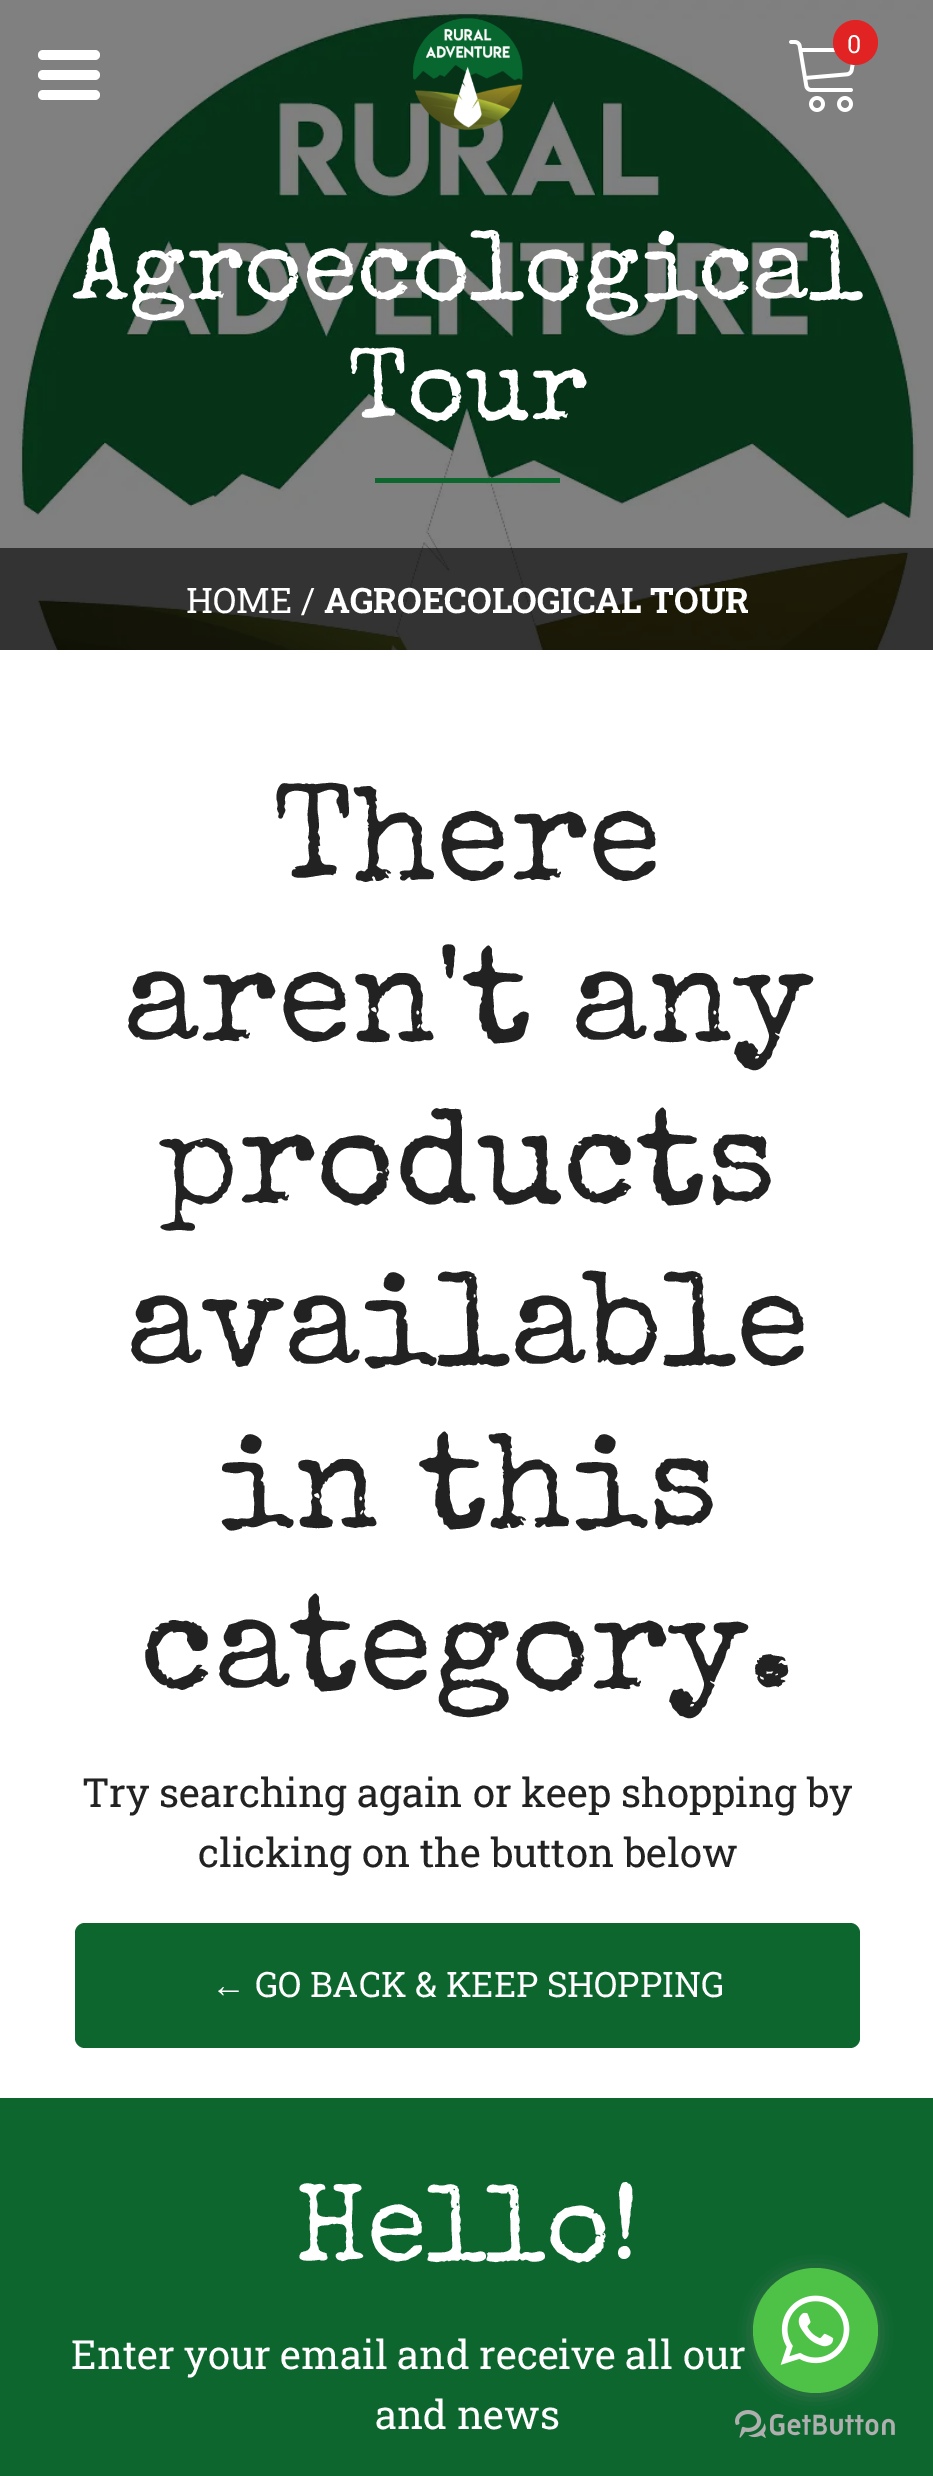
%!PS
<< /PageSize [933 2476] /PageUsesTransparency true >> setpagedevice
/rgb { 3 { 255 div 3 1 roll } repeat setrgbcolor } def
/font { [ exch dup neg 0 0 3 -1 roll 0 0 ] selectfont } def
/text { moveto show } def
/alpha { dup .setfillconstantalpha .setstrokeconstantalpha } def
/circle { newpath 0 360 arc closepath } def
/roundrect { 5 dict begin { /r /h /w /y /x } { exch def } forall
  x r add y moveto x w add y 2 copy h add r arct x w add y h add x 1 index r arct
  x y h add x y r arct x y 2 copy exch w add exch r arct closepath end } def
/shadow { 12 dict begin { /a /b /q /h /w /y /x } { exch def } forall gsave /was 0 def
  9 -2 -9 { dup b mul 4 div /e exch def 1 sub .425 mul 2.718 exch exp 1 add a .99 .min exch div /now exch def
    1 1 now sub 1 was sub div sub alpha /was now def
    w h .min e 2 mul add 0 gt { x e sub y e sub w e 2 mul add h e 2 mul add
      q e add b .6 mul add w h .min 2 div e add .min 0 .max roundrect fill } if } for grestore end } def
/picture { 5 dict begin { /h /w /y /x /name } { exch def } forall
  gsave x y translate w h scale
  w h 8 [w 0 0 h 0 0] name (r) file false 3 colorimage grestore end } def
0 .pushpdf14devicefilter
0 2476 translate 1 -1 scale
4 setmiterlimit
255 255 255 rgb
0 0 933 2476 rectfill
0 0 0 rgb
0 0 933 650 rectfill
(img_03.rgb) 0 0 933 650 picture
(img_01.rgb) 413 18 110 112 picture
(img_02.rgb) 789 40 66 72 picture
226 35 35 rgb
855.5 42.5 22.5 circle fill
255 255 255 rgb
38 50 62 10 5 roundrect fill
38 70 62 10 5 roundrect fill
38 90 62 10 5 roundrect fill
13 102 46 rgb
375 478 185 5 rectfill
75 1923 785 125 10 roundrect fill
0.6 alpha
0 0 0 rgb
0 548 933 102 rectfill
1 alpha
13 102 46 rgb
0 2098 933 378 rectfill
(img_05.rgb) 735 2410 160 28 picture
136 136 136 rgb
753 2270 125 125 62.5 9 0.4 shadow
77 194 71 rgb
815.5 2330.5 62.5 circle fill
(img_04.rgb) 780 2295 70 70 picture
/RobotoSlab-Regular 25 font
255 255 255 rgb
(0) 847 53 text
/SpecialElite-Regular 100 font
(Agroecological) 73 298 text
(Tour) 348 418 text
/SpecialElite-Regular 135 font
34 34 34 rgb
(There) 273 878 text
(aren't any) 123 1039 text
(products) 159 1201 text
(available) 126 1363 text
(in this) 217 1525 text
(category.) 140 1687 text
/RobotoSlab-Regular 40 font
(Try searching again or keep shopping by) 82 1807 text
(clicking on the button below) 198 1867 text
/LiberationSerif-Regular 35 font
255 255 255 rgb
(←) 211 1997 text
/RobotoSlab-Regular 35 font
(GO BACK & KEEP SHOPPING) 255 1997 text
(HOME /) 186 613 text
/RobotoSlab-Bold 35 font
(AGROECOLOGICAL TOUR) 324 613 text
/SpecialElite-Regular 110 font
(Hello!) 295 2259 text
/RobotoSlab-Regular 40 font
(Enter your email and receive all our) 71 2369 text
(and news) 375 2429 text
.poppdf14devicefilter showpage
